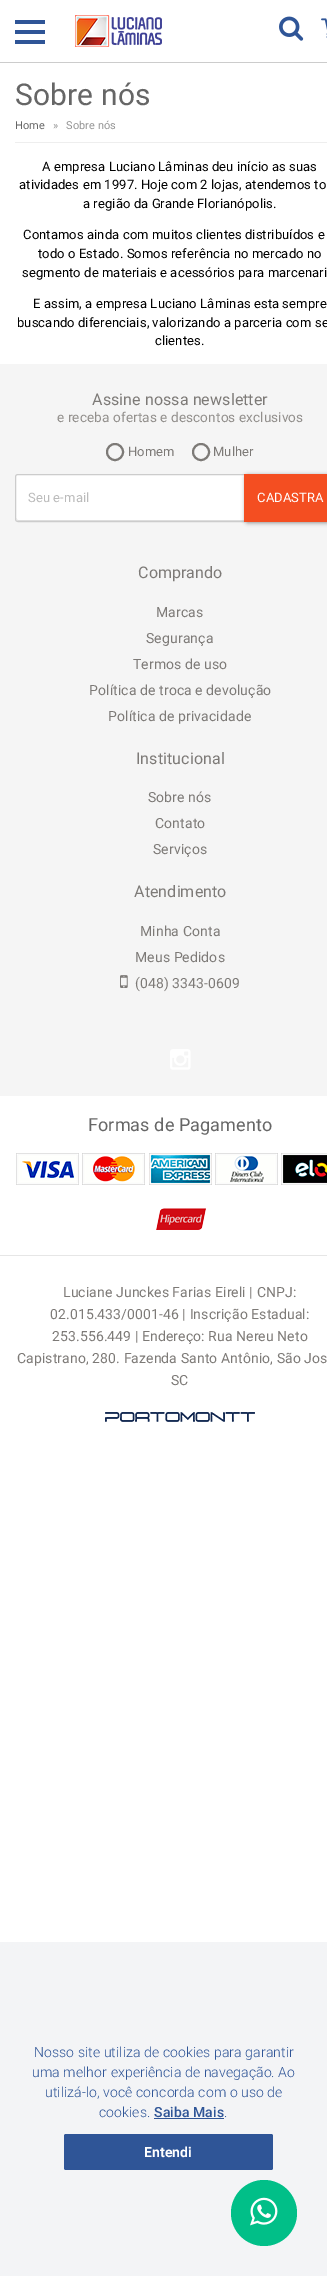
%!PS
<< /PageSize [327 2276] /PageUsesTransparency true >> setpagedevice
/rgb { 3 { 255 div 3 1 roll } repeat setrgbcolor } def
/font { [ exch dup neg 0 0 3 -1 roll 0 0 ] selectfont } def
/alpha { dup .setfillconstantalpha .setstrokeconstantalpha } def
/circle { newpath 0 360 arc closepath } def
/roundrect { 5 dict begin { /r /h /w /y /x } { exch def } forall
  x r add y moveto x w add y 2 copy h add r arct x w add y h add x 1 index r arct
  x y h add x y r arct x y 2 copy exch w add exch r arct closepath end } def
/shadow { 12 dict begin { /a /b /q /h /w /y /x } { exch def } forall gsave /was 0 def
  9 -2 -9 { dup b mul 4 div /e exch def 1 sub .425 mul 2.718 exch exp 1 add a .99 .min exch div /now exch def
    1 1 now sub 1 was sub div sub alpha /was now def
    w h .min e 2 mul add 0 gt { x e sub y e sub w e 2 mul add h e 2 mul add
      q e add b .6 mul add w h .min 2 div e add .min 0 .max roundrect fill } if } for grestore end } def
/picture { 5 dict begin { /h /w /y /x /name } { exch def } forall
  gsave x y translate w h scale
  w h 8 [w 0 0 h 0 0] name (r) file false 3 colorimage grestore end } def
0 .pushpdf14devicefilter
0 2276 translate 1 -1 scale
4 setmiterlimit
255 255 255 rgb
0 0 327 2276 rectfill
204 204 204 rgb
0 62 327 1 rectfill
47 85 151 rgb
15 20 30 4 rectfill
15 30 30 4 rectfill
15 40 30 4 rectfill
(img_01.rgb) 75 15 87 32 picture
(img_02.rgb) 279 16 25 25 picture
(img_03.rgb) 321 18 6 20 picture
238 238 238 rgb
15 142 312 1 rectfill
245 245 245 rgb
0 364 327 732 rectfill
125 122 119 rgb
2 setlinewidth
115 452 8 circle stroke
201 452 8 circle stroke
255 255 255 rgb
18 474 moveto 227 0 rlineto 0 48 rlineto -227 0 rlineto -1.5 0 -3 -1.5 -3 -3 rcurveto 0 -42 rlineto 0 -1.5 1.5 -3 3 -3 rcurveto closepath fill
221 221 221 rgb
16 518 moveto 1 2 rlineto 1 1 rlineto 226 0 rlineto 0 -1 rlineto -226 0 rlineto -1 0 -2 -1 -2 -2 rcurveto closepath fill
204 204 204 rgb
1 setlinewidth
18 474.5 moveto 226.5 0 rlineto 0 47 rlineto -226.5 0 rlineto -1.5 0 -2.5 -1 -2.5 -2.5 rcurveto 0 -42 rlineto 0 -1.5 1 -2.5 2.5 -2.5 rcurveto closepath stroke
0 0 0 rgb
245 475 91 48 3 2 0.4 shadow
244 78 33 rgb
244 474 83 48 rectfill
(img_04.rgb) 120 975 8 13 picture
(img_05.rgb) 170 1049 21 21 picture
(img_06.rgb) 16 1153 63 32 picture
(img_07.rgb) 82 1153 63 32 picture
(img_08.rgb) 149 1153 63 32 picture
(img_09.rgb) 215 1153 63 32 picture
(img_10.rgb) 281 1153 46 32 picture
(img_11.rgb) 156 1208 50 22 picture
230 230 230 rgb
0 1255 327 1 rectfill
(img_12.rgb) 105 1412 150 10 picture
243 244 246 rgb
0 1942 327 334 rectfill
47 85 151 rgb
154 2118 70 1 rectfill
64 2134 209 36 2 roundrect fill
1 191 136 rgb
264 2213 33 circle fill
(img_13.rgb) 250 2197 28 29 picture
/Roboto-Regular 30 font
102 102 102 rgb
15 105 moveto 0.1 0 (Sobre nós) ashow
/Roboto-Regular 11 font
15 129 moveto 0.1 0 (Home) ashow
148 148 148 rgb
53 129 moveto 0.1 0 (») ashow
66 129 moveto 0.1 0 (Sobre nós) ashow
/Roboto-Regular 13 font
0 0 0 rgb
42 171 moveto 0.1 0 (A empresa Luciano Lâminas deu início as suas) ashow
19 189 moveto 0.1 0 (atividades em 1997. Hoje com 2 lojas, atendemos to) ashow
83 208 moveto 0.1 0 (a região da Grande Florianópolis.) ashow
23 239 moveto 0.1 0 (Contamos ainda com muitos clientes distribuídos e) ashow
38 258 moveto 0.1 0 (todo o Estado. Somos referência no mercado no) ashow
22 277 moveto 0.1 0 (segmento de materiais e acessórios para marcenari) ashow
33 308 moveto 0.1 0 (E assim, a empresa Luciano Lâminas esta sempre) ashow
17 327 moveto 0.1 0 (buscando diferenciais, valorizando a parceria com se) ashow
155 345 moveto 0.1 0 (clientes.) ashow
/Roboto-Regular 16 font
125 122 119 rgb
92 405 moveto 0.1 0 (Assine nossa newsletter) ashow
/Roboto-Regular 13.6 font
146 143 140 rgb
57 422 moveto 0.1 0 (e receba ofertas e descontos exclusivos) ashow
/Roboto-Regular 13 font
125 122 119 rgb
128 456 moveto 0.1 0 (Homem) ashow
213 456 moveto 0.1 0 (Mulher) ashow
187 187 187 rgb
28 502 moveto 0.1 0 (Seu e-mail) ashow
255 255 255 rgb
257 502 moveto 0.1 0 (CADASTRA) ashow
/Roboto-Regular 16 font
125 122 119 rgb
138 578 moveto 0.1 0 (Comprando) ashow
/Roboto-Regular 14 font
156 617 moveto 0.1 0 (Marcas) ashow
146 643 moveto 0.1 0 (Segurança) ashow
133 669 moveto 0.1 0 (Termos de uso) ashow
89 695 moveto 0.1 0 (Política de troca e devolução) ashow
108 721 moveto 0.1 0 (Política de privacidade) ashow
/Roboto-Regular 16 font
136 764 moveto 0.1 0 (Institucional) ashow
/Roboto-Regular 14 font
148 802 moveto 0.1 0 (Sobre nós) ashow
155 828 moveto 0.1 0 (Contato) ashow
153 854 moveto 0.1 0 (Serviços) ashow
/Roboto-Regular 16 font
134 897 moveto 0.1 0 (Atendimento) ashow
/Roboto-Regular 14 font
140 936 moveto 0.1 0 (Minha Conta) ashow
135 962 moveto 0.1 0 (Meus Pedidos) ashow
135 988 moveto 0.1 0 (\(048\) 3343-0609) ashow
/Roboto-Regular 18 font
102 102 102 rgb
88 1131 moveto 0.1 0 (Formas de Pagamento) ashow
/Roboto-Regular 14 font
125 122 119 rgb
63 1297 moveto 0.1 0 (Luciane Junckes Farias Eireli | CNPJ:) ashow
50 1319 moveto 0.1 0 (02.015.433/0001-46 | Inscrição Estadual:) ashow
52 1341 moveto 0.1 0 (253.556.449 | Endereço: Rua Nereu Neto) ashow
17 1363 moveto 0.1 0 (Capistrano, 280. Fazenda Santo Antônio, São Jos) ashow
171 1385 moveto 0.1 0 (SC) ashow
/Roboto-Light 14 font
47 85 151 rgb
34 2057 moveto 0.1 0 (Nosso site utiliza de cookies para garantir) ashow
32 2077 moveto 0.1 0 (uma melhor experiência de navegação. Ao) ashow
45 2097 moveto 0.1 0 (utilizá-lo, você concorda com o uso de) ashow
99 2117 moveto 0.1 0 (cookies.) ashow
/Roboto-Medium 14 font
154 2117 moveto 0.1 0 (Saiba Mais) ashow
/Roboto-Light 14 font
224 2117 moveto 0.1 0 (.) ashow
/Roboto-Bold 14 font
255 255 255 rgb
144 2157 moveto 0.1 0 (Entendi) ashow
.poppdf14devicefilter showpage
